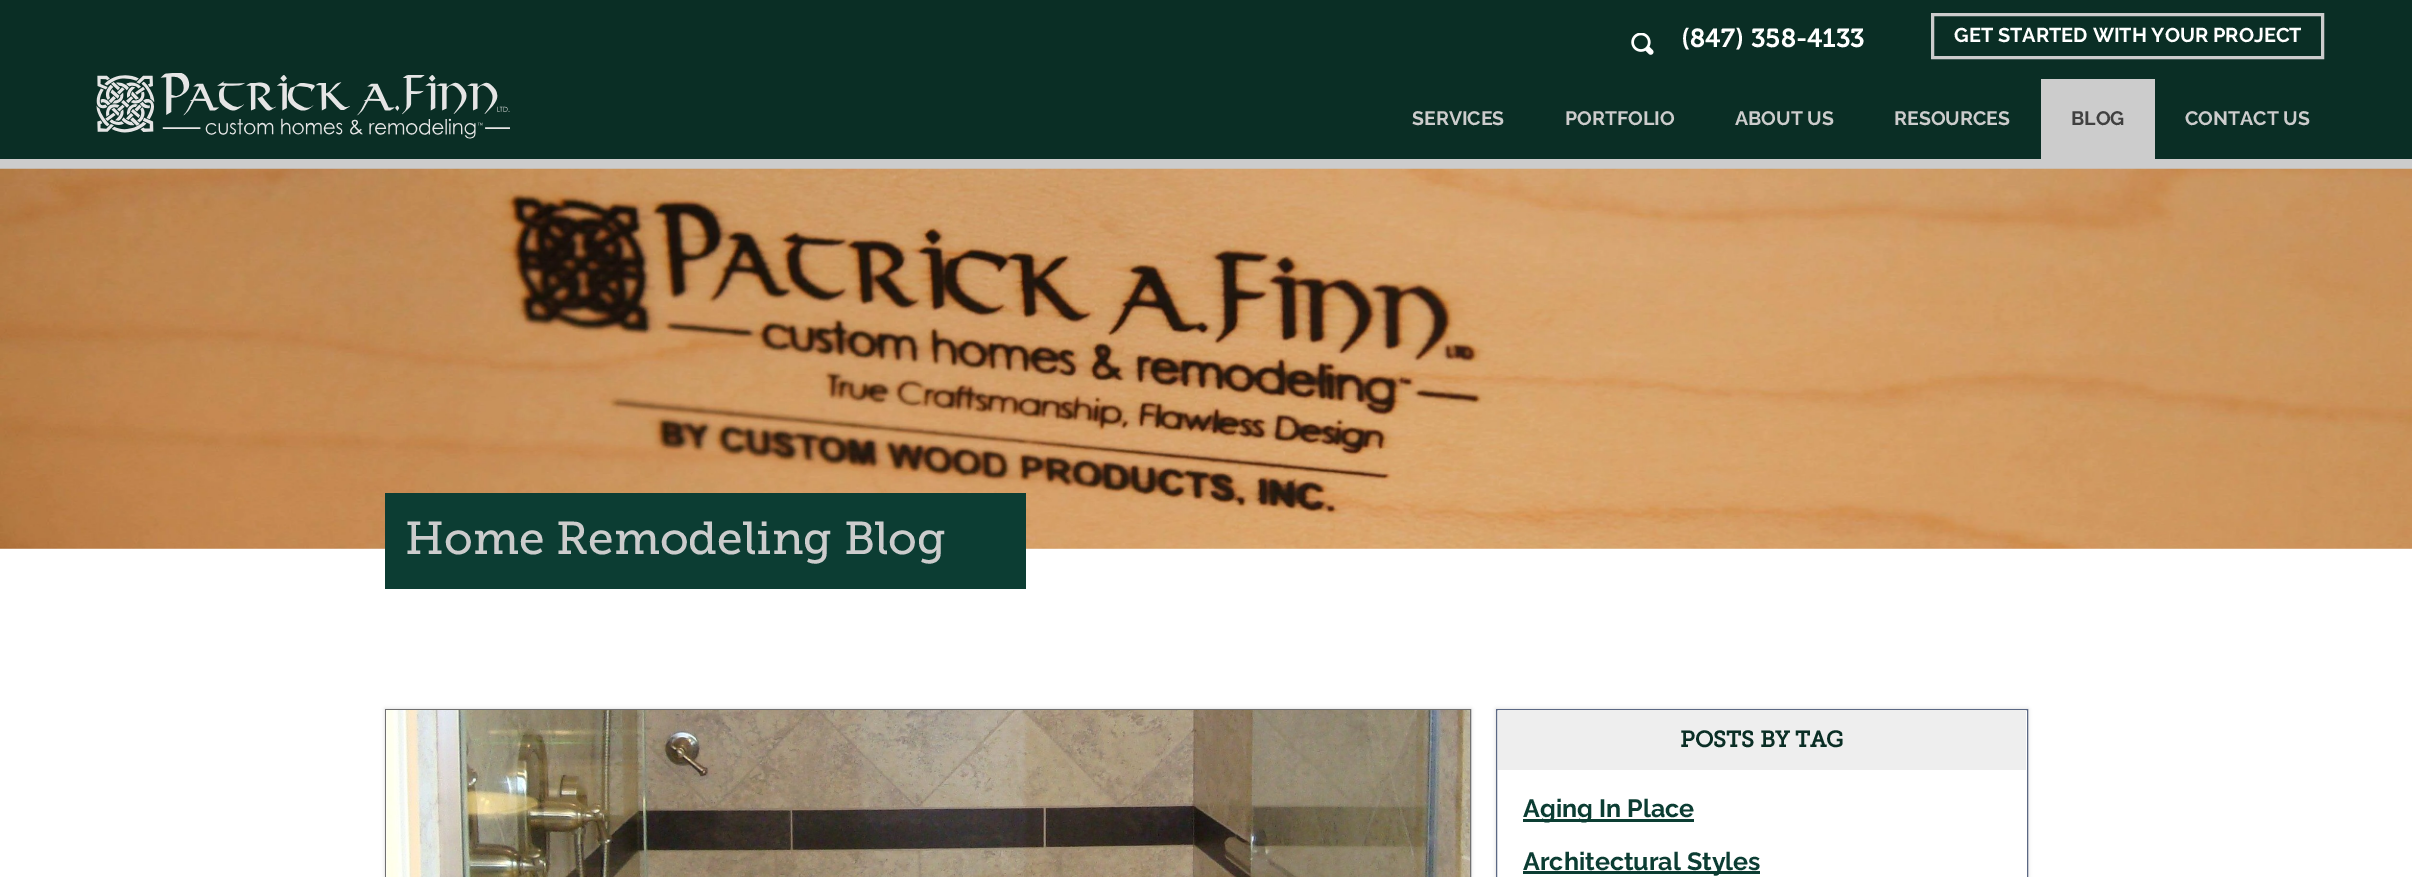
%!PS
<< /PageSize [2412 877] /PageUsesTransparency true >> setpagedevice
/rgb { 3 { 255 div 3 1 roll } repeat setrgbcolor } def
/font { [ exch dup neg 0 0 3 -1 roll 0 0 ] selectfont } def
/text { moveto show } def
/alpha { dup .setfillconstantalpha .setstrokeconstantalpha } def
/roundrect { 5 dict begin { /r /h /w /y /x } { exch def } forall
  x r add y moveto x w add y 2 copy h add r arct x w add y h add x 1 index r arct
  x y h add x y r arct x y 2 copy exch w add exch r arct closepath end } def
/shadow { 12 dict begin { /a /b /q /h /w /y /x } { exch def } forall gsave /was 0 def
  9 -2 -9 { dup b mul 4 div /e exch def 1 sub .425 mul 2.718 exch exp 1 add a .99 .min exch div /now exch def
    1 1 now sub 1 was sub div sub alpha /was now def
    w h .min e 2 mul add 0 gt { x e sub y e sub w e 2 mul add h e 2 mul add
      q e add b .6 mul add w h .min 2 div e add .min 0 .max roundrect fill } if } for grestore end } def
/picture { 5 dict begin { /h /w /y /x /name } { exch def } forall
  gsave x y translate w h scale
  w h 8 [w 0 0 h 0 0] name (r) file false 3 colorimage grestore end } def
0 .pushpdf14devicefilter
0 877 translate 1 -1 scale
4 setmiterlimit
255 255 255 rgb
0 0 2412 877 rectfill
10 46 37 rgb
0 0 2412 159 rectfill
204 204 204 rgb
0 159 2412 10 rectfill
(img_01.rgb) 96 73 414 66 picture
(img_02.rgb) 1631 33 23 22 picture
3 setlinewidth
1932.5 14.5 390 43 rectstroke
2041 79 114 80 rectfill
(img_03.rgb) 0 168 2412 381 picture
12 61 51 rgb
385 493 641 96 rectfill
0 0 0 rgb
385 709 1086 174 0 2 0.16 shadow
112 112 112 rgb
1 setlinewidth
385.5 709.5 1085 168 rectstroke
(img_04.rgb) 386 710 1084 167 picture
0 0 0 rgb
1496 709 532 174 0 2 0.16 shadow
255 255 255 rgb
1496.5 709.5 moveto 531 0 rlineto 0 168 rlineto -531 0 rlineto closepath gsave fill grestore
91 104 132 rgb
stroke
238 238 238 rgb
1498 710 528 60 rectfill
12 61 51 rgb
1523 819 171 3 rectfill
1523 871 237 3 rectfill
/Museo-SemiBold 26 font
255 255 255 rgb
(\(847\) 358-4133) 1681 47 text
/Raleway-Bold 20 font
(GET STARTED WITH YOUR PROJECT) 1954 42 text
/Raleway-Bold 19.5 font
204 204 204 rgb
(SERVICES) 1412 125 text
(PORTFOLIO) 1565 125 text
(ABOUT US) 1735 125 text
(RESOURCES) 1894 125 text
64 64 64 rgb
(BLOG) 2071 125 text
204 204 204 rgb
(CONTACT US) 2185 125 text
/MuseoSlab-Regular 46 font
(Home Remodeling Blog) 405 554 text
/MuseoSlab-Bold 22.5 font
10 46 37 rgb
(POSTS BY TAG) 1680 747 text
/Raleway-Bold 25 font
12 61 51 rgb
(Aging In Place) 1523 817 text
(Architectural Styles) 1523 870 text
.poppdf14devicefilter showpage
